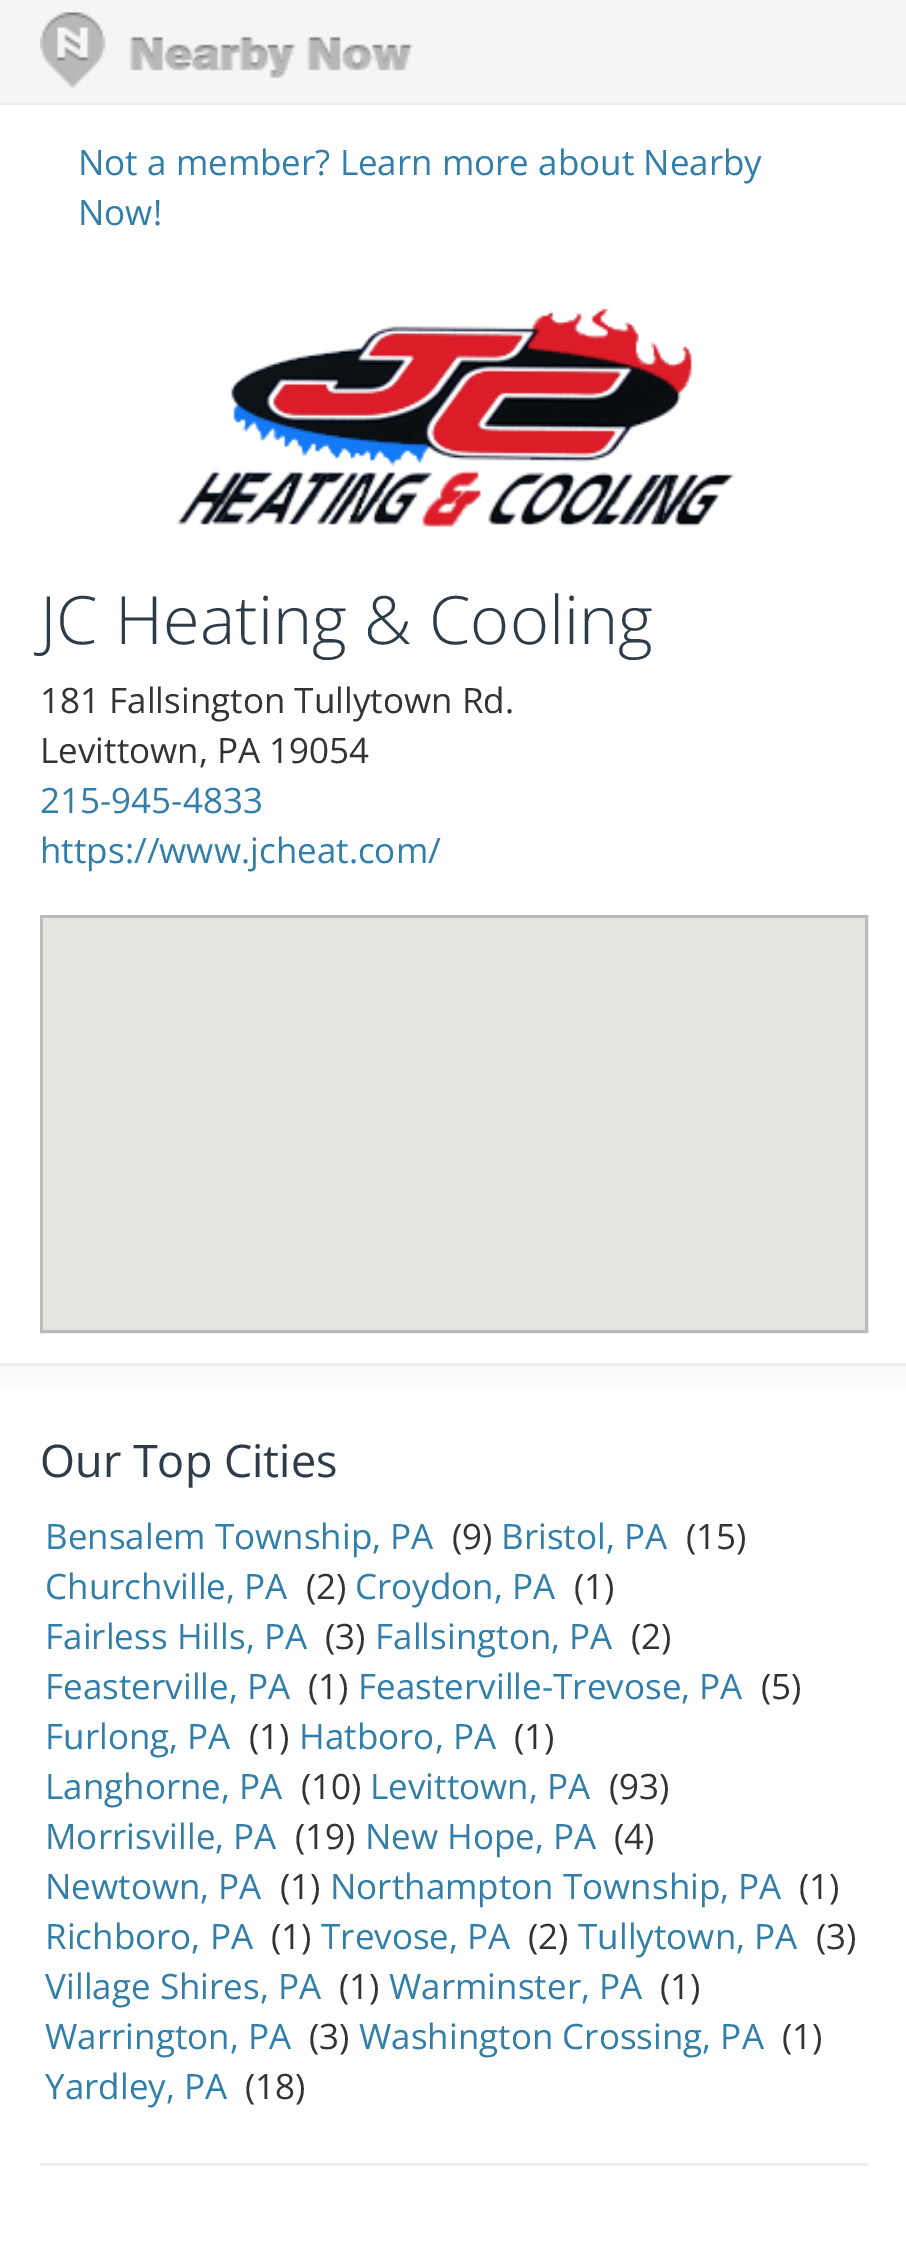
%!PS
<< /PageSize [906 2243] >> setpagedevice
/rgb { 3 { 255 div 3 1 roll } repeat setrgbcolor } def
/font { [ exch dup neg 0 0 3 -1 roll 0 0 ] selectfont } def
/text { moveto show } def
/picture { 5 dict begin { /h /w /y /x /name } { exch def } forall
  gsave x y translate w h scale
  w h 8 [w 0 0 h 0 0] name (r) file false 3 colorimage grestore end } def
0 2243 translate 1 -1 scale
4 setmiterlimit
255 255 255 rgb
0 0 906 2243 rectfill
234 236 237 rgb
0 102 moveto 0 3 rlineto 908 0 rlineto 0 -102 rlineto 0 99 rlineto closepath fill
245 245 245 rgb
0 0 906 103 rectfill
(img_01.rgb) 40 12 373 76 picture
(img_02.rgb) 175 308 561 219 picture
187 187 187 rgb
3 setlinewidth
41.5 916.5 825 415 rectstroke
229 227 223 rgb
43 918 822 412 rectfill
gsave 0 1366 moveto 906 0 rlineto 0 23 rlineto -906 0 rlineto closepath clip newpath
<< /ShadingType 2 /ColorSpace /DeviceRGB /Coords [454 1365 454 1413] /Extend [true true] /Function << /FunctionType 2 /Domain [0 1] /C0 [0.98 0.98 0.98] /C1 [1 1 1] /N 1 >> >> shfill grestore
239 240 241 rgb
0 1363 906 3 rectfill
238 238 238 rgb
40 2163 828 3 rectfill
/OpenSans-Regular 35 font
48 126 169 rgb
(Not a member? Learn more about Nearby) 78 175 text
(Now!) 78 225 text
/OpenSans-Light 66.75 font
45 60 72 rgb
(JC Heating & Cooling) 40 644 text
/OpenSans-Regular 35 font
51 51 51 rgb
(181 Fallsington Tullytown Rd.) 40 713 text
(Levittown, PA 19054) 40 763 text
48 126 169 rgb
(215-945-4833) 40 813 text
(https://www.jcheat.com/) 40 863 text
/OpenSans-Regular 45 font
45 60 72 rgb
(Our Top Cities) 40 1477 text
/OpenSans-Regular 35 font
48 126 169 rgb
(Bensalem Township, PA) 45 1549 text
51 51 51 rgb
(\(9\)) 452 1549 text
48 126 169 rgb
(Bristol, PA) 501 1549 text
51 51 51 rgb
(\(15\)) 686 1549 text
48 126 169 rgb
(Churchville, PA) 45 1599 text
51 51 51 rgb
(\(2\)) 306 1599 text
48 126 169 rgb
(Croydon, PA) 355 1599 text
51 51 51 rgb
(\(1\)) 574 1599 text
48 126 169 rgb
(Fairless Hills, PA) 45 1649 text
51 51 51 rgb
(\(3\)) 325 1649 text
48 126 169 rgb
(Fallsington, PA) 375 1649 text
51 51 51 rgb
(\(2\)) 631 1649 text
48 126 169 rgb
(Feasterville, PA) 45 1699 text
51 51 51 rgb
(\(1\)) 308 1699 text
48 126 169 rgb
(Feasterville-Trevose, PA) 358 1699 text
51 51 51 rgb
(\(5\)) 761 1699 text
48 126 169 rgb
(Furlong, PA) 45 1749 text
51 51 51 rgb
(\(1\)) 249 1749 text
48 126 169 rgb
(Hatboro, PA) 299 1749 text
51 51 51 rgb
(\(1\)) 514 1749 text
48 126 169 rgb
(Langhorne, PA) 45 1799 text
51 51 51 rgb
(\(10\)) 301 1799 text
48 126 169 rgb
(Levittown, PA) 370 1799 text
51 51 51 rgb
(\(93\)) 609 1799 text
48 126 169 rgb
(Morrisville, PA) 45 1849 text
51 51 51 rgb
(\(19\)) 295 1849 text
48 126 169 rgb
(New Hope, PA) 365 1849 text
51 51 51 rgb
(\(4\)) 614 1849 text
48 126 169 rgb
(Newtown, PA) 45 1899 text
51 51 51 rgb
(\(1\)) 280 1899 text
48 126 169 rgb
(Northampton Township, PA) 330 1899 text
51 51 51 rgb
(\(1\)) 799 1899 text
48 126 169 rgb
(Richboro, PA) 45 1949 text
51 51 51 rgb
(\(1\)) 271 1949 text
48 126 169 rgb
(Trevose, PA) 321 1949 text
51 51 51 rgb
(\(2\)) 528 1949 text
48 126 169 rgb
(Tullytown, PA) 578 1949 text
51 51 51 rgb
(\(3\)) 816 1949 text
48 126 169 rgb
(Village Shires, PA) 45 1999 text
51 51 51 rgb
(\(1\)) 339 1999 text
48 126 169 rgb
(Warminster, PA) 389 1999 text
51 51 51 rgb
(\(1\)) 660 1999 text
48 126 169 rgb
(Warrington, PA) 45 2049 text
51 51 51 rgb
(\(3\)) 309 2049 text
48 126 169 rgb
(Washington Crossing, PA) 359 2049 text
51 51 51 rgb
(\(1\)) 782 2049 text
48 126 169 rgb
(Yardley, PA) 45 2099 text
51 51 51 rgb
(\(18\)) 245 2099 text
showpage
